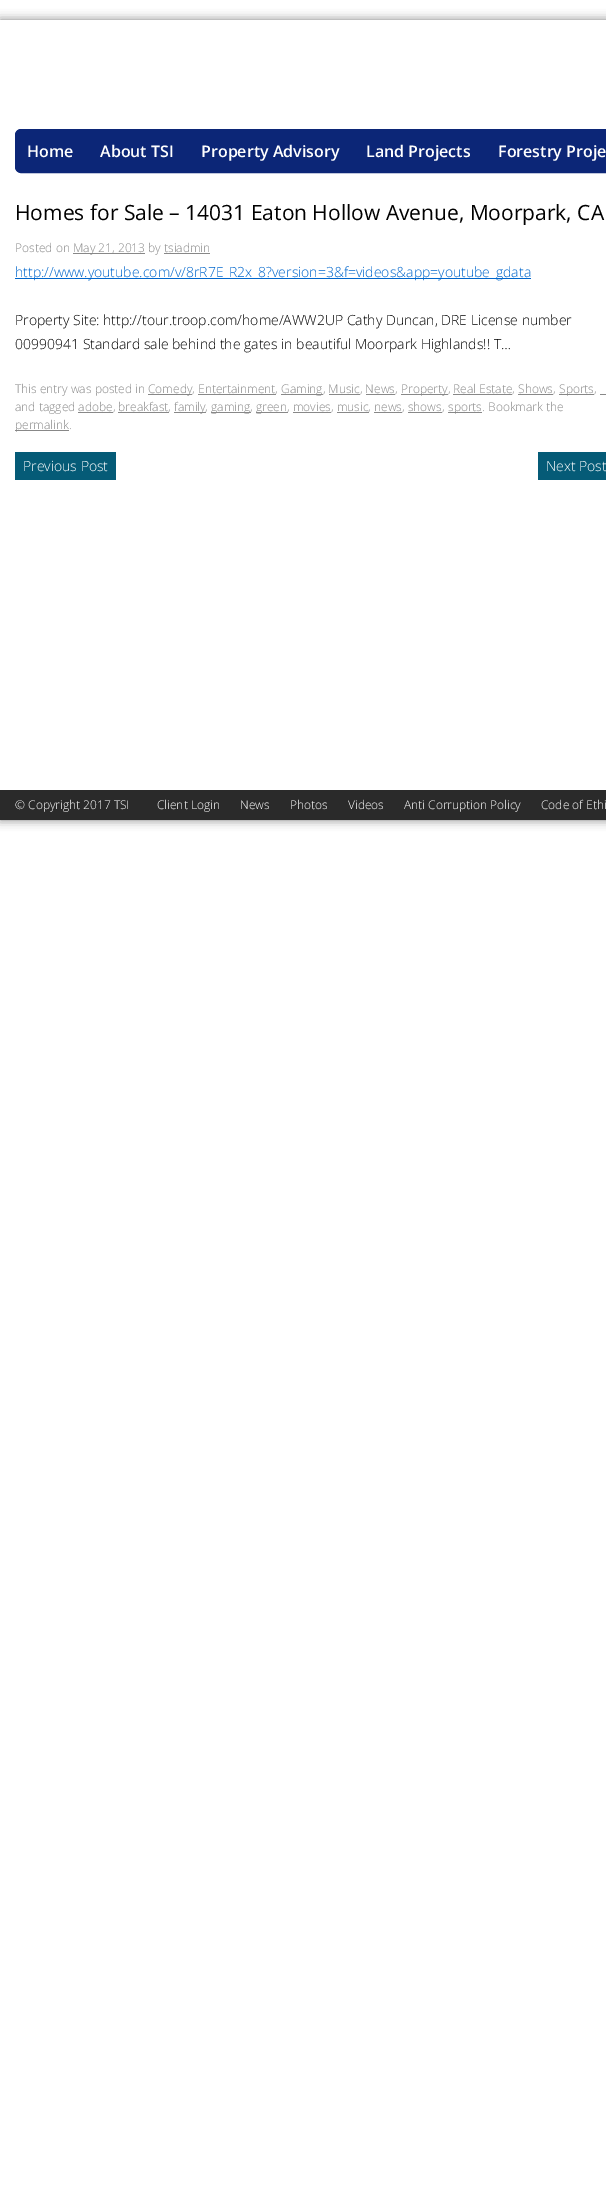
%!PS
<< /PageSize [606 2190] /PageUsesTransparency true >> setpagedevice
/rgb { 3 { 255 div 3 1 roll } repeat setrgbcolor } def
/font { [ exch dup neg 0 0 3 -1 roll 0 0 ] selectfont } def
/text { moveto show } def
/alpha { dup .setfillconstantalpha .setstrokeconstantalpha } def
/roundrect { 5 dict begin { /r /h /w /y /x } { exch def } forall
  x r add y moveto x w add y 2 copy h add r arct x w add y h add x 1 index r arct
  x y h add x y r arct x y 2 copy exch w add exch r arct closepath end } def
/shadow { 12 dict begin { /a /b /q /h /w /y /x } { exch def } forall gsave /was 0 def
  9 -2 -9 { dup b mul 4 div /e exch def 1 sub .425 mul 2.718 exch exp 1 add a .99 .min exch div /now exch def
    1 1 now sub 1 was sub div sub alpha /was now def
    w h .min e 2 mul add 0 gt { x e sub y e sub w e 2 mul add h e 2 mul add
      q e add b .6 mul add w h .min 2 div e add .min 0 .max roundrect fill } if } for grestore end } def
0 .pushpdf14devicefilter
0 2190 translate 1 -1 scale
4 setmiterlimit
255 255 255 rgb
0 0 606 2190 rectfill
gsave
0 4 moveto 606 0 rlineto 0 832 rlineto -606 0 rlineto closepath 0 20 moveto 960 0 rlineto 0 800 rlineto -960 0 rlineto closepath eoclip newpath
0 0 0 rgb
0 20 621 800 0 5 0.5 shadow
grestore
12 38 119 rgb
15.5 129.5 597 43 5.5 roundrect gsave fill grestore
stroke
136 136 136 rgb
73 253 72 1 rectfill
164 253 46 1 rectfill
0 102 204 rgb
15 278 516 1 rectfill
136 136 136 rgb
148 394 44 1 rectfill
281 394 42 1 rectfill
401 394 47 1 rectfill
559 394 35 1 rectfill
198 394 78 1 rectfill
329 394 31 1 rectfill
366 394 29 1 rectfill
453 394 59 1 rectfill
518 394 35 1 rectfill
600 394 6 1 rectfill
174 412 32 1 rectfill
211 412 40 1 rectfill
256 412 32 1 rectfill
448 412 34 1 rectfill
78 412 35 1 rectfill
118 412 51 1 rectfill
293 412 38 1 rectfill
337 412 32 1 rectfill
374 412 28 1 rectfill
408 412 34 1 rectfill
15 430 54 1 rectfill
5 91 119 rgb
15 452 101 28 rectfill
538 452 68 28 rectfill
42 42 42 rgb
0 790 606 30 rectfill
/OpenSans-SemiBold 16 font
255 255 255 rgb
(Home) 27 157 text
(About TSI) 100 157 text
(Property Advisory) 201 157 text
(Land Projects) 366 157 text
(Forestry Proje) 498 157 text
/OpenSans-Regular 21 font
0 0 0 rgb
(Homes for Sale – 14031 Eaton Hollow Avenue, Moorpark, CA) 15 220 text
/OpenSans-Light 12 font
136 136 136 rgb
(Posted on) 15 252 text
(May 21, 2013 by tsiadmin) 73 252 text
/OpenSans-Light 14 font
0 102 204 rgb
(http://www.youtube.com/v/8rR7E_R2x_8?version=3&f=videos&app=youtube_gdata) 15 277 text
0 0 0 rgb
(Property Site: http://tour.troop.com/home/AWW2UP Cathy Duncan, DRE License number) 15 325 text
(00990941 Standard sale behind the gates in beautiful Moorpark Highlands!! T…) 15 349 text
/OpenSans-Light 12 font
136 136 136 rgb
(This entry was posted in) 15 393 text
(Comedy, Entertainment,) 148 393 text
(Gaming, Music, News,) 281 393 text
(Property, Real Estate, Shows,) 401 393 text
(Sports,) 559 393 text
(and tagged adobe, breakfast,) 15 411 text
(family,) 174 411 text
(gaming,) 211 411 text
(green, movies, music, news, shows,) 256 411 text
(sports. Bookmark the) 448 411 text
(permalink.) 15 429 text
/OpenSans-Light 14 font
255 255 255 rgb
(Previous Post) 23 471 text
(Next Post) 546 471 text
/OpenSans-Light 12 font
(© Copyright 2017 TSI) 15 809 text
(Client Login) 157 809 text
(News) 240 809 text
(Photos) 290 809 text
(Videos) 348 809 text
(Anti Corruption Policy) 404 809 text
(Code of Ethi) 541 809 text
.poppdf14devicefilter showpage
